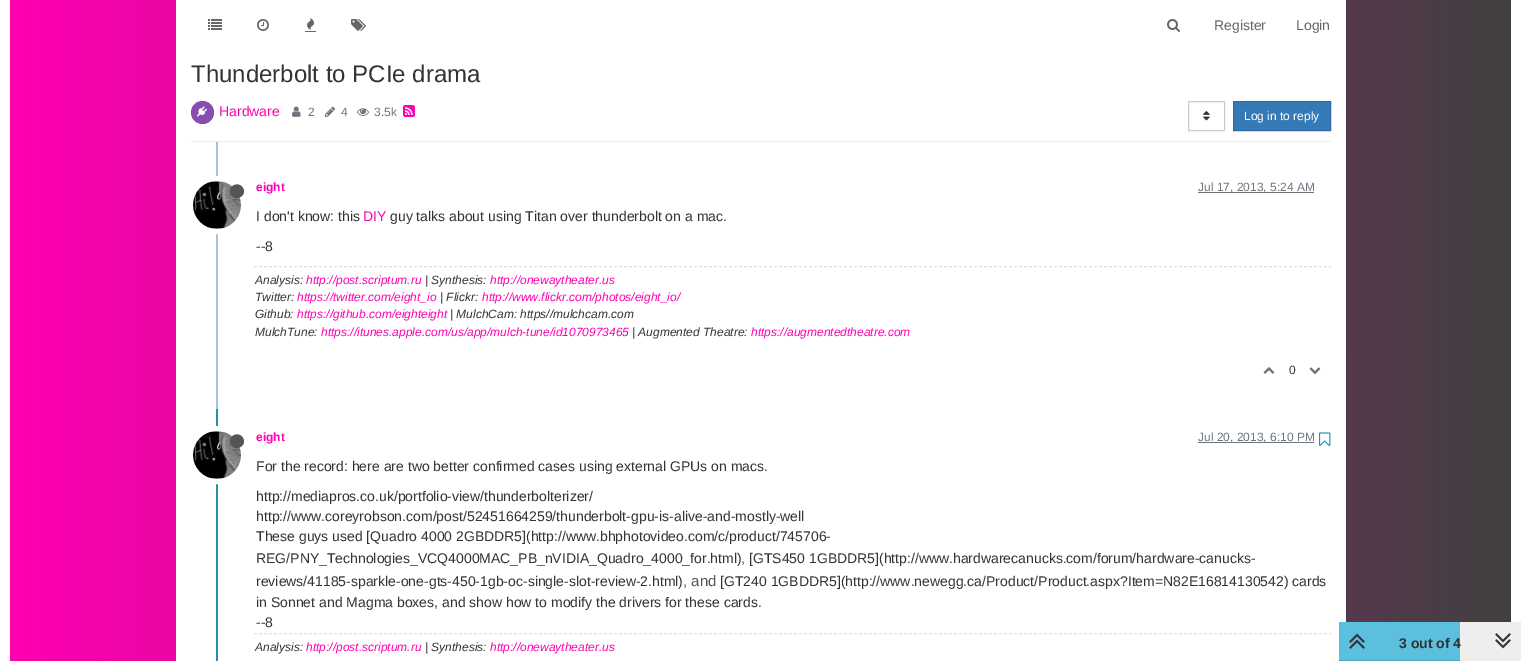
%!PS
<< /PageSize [1521 661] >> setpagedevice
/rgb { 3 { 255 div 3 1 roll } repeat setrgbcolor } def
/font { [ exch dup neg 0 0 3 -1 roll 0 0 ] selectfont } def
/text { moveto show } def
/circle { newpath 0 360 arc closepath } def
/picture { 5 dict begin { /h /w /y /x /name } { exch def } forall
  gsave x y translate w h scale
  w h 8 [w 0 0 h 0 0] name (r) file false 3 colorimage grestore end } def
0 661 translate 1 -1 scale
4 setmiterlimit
255 255 255 rgb
0 0 1521 661 rectfill
gsave 10 0 moveto 1501 0 rlineto 0 661 rlineto -1501 0 rlineto closepath clip newpath
<< /ShadingType 2 /ColorSpace /DeviceRGB /Coords [0 -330 1521 -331] /Extend [true true] /Function << /FunctionType 2 /Domain [0 1] /C0 [1 0 0.698] /C1 [0.251 0.251 0.251] /N 1 >> >> shfill grestore
176 0 1170 661 rectfill
(img_01.rgb) 208 19 14 11 picture
(img_02.rgb) 257 19 12 12 picture
(img_03.rgb) 305 18 11 14 picture
(img_04.rgb) 351 19 15 12 picture
(img_05.rgb) 1167 19 13 13 picture
238 238 238 rgb
191 141 1140 1 rectfill
135 78 173 rgb
202.5 112.5 11.5 circle fill
(img_06.rgb) 197 106 10 11 picture
(img_07.rgb) 292 106 9 11 picture
(img_08.rgb) 325 106 11 11 picture
(img_09.rgb) 357 108 12 8 picture
(img_10.rgb) 403 105 12 12 picture
204 204 204 rgb
1188.5 101.5 36 29 rectstroke
(img_11.rgb) 1203 111 7 10 picture
51 122 183 rgb
1233.5 101.5 moveto 97 0 rlineto 0 29 rlineto -97 0 rlineto closepath gsave fill grestore
46 109 164 rgb
stroke
160 196 228 rgb
216 142 2 267 rectfill
255 255 255 rgb
5 setlinewidth
217 205 26.5 circle stroke
(img_12.rgb) 193 181 48 48 picture
85 85 85 rgb
243 188 moveto 4.5 7.5 -7.5 14.5 -12 6.5 rcurveto -4.5 -7.5 7 -14.5 12 -6.5 rcurveto closepath fill
108 117 125 rgb
1198 192 116 1 rectfill
222 222 222 rgb
1 setlinewidth
[3 2] 0 setdash
254 266.5 moveto 1077 0 rlineto stroke
(img_13.rgb) 1263 367 12 7 picture
(img_14.rgb) 1309 367 12 8 picture
35 144 176 rgb
216 409 2 252 rectfill
255 255 255 rgb
5 setlinewidth
[] 0 setdash
217 455 26.5 circle stroke
(img_15.rgb) 193 431 48 48 picture
85 85 85 rgb
243 438 moveto 4.5 7.5 -7.5 14.5 -12 6.5 rcurveto -4.5 -7.5 7 -14.5 12 -6.5 rcurveto closepath fill
108 117 125 rgb
1198 442 116 1 rectfill
(img_16.rgb) 1319 432 12 14 picture
222 222 222 rgb
1 setlinewidth
[3 2] 0 setdash
254 633.5 moveto 1077 0 rlineto stroke
238 238 238 rgb
1460 622 61 39 rectfill
91 192 222 rgb
1339 622 121 38 rectfill
77 163 189 rgb
1339 660 121 1 rectfill
(img_17.rgb) 1349 633 16 16 picture
(img_18.rgb) 1495 633 16 16 picture
/LiberationSans-Regular 14 font
102 102 102 rgb
(Register) 1214 30 text
(Login) 1296 30 text
/LiberationSans-Regular 24 font
51 51 51 rgb
(Thunderbolt to PCIe drama) 191 82 text
/LiberationSans-Regular 14 font
255 0 178 rgb
(Hardware) 219 116 text
/LiberationSans-Regular 12 font
108 117 125 rgb
(2) 308 116 text
(4) 341 116 text
(3.5k) 374 116 text
255 255 255 rgb
(Log in to reply) 1244 120 text
/LiberationSans-Bold 12 font
255 0 178 rgb
(eight) 256 191 text
/LiberationSans-Regular 12 font
108 117 125 rgb
(Jul 17, 2013, 5:24 AM) 1198 191 text
/LiberationSans-Regular 14 font
51 51 51 rgb
(I don't know: this) 256 221 text
255 0 178 rgb
(DIY) 363 221 text
51 51 51 rgb
(guy talks about using Titan over thunderbolt on a mac.) 390 221 text
(--8) 256 251 text
/LiberationSans-Italic 12 font
(Analysis:) 255 284 text
255 0 178 rgb
(http://post.scriptum.ru) 306 284 text
51 51 51 rgb
(| Synthesis:) 425 284 text
255 0 178 rgb
(http://onewaytheater.us) 490 284 text
51 51 51 rgb
(Twitter:) 255 301 text
255 0 178 rgb
(https://twitter.com/eight_io) 297 301 text
51 51 51 rgb
(| Flickr:) 440 301 text
255 0 178 rgb
(http://www.flickr.com/photos/eight_io/) 482 301 text
51 51 51 rgb
(Github:) 255 318 text
255 0 178 rgb
(https://github.com/eighteight) 297 318 text
51 51 51 rgb
(| MulchCam: https//mulchcam.com) 450 318 text
(MulchTune:) 255 336 text
255 0 178 rgb
(https://itunes.apple.com/us/app/mulch-tune/id1070973465) 321 336 text
51 51 51 rgb
(| Augmented Theatre:) 632 336 text
255 0 178 rgb
(https://augmentedtheatre.com) 751 336 text
/LiberationSans-Regular 12 font
51 51 51 rgb
(0) 1289 374 text
/LiberationSans-Bold 12 font
255 0 178 rgb
(eight) 256 441 text
/LiberationSans-Regular 12 font
108 117 125 rgb
(Jul 20, 2013, 6:10 PM) 1198 441 text
/LiberationSans-Regular 14 font
51 51 51 rgb
(For the record: here are two better confirmed cases using external GPUs on macs.) 256 471 text
(http://mediapros.co.uk/portfolio-view/thunderbolterizer/) 256 501 text
(http://www.coreyrobson.com/post/52451664259/thunderbolt-gpu-is-alive-and-mostly-well) 256 521 text
(These guys used [Quadro 4000 2GBDDR5]\(http://www.bhphotovideo.com/c/product/745706-) 256 541 text
(REG/PNY_Technologies_VCQ4000MAC_PB_nVIDIA_Quadro_4000_for.html\)) 256 563 text
/LiberationSans-Regular 15 font
85 85 85 rgb
(,) 741 563 text
/LiberationSans-Regular 14 font
51 51 51 rgb
([GTS450 1GBDDR5]\(http://www.hardwarecanucks.com/forum/hardware-canucks-) 749 563 text
(reviews/41185-sparkle-one-gts-450-1gb-oc-single-slot-review-2.html\)) 256 586 text
/LiberationSans-Regular 15 font
85 85 85 rgb
(, and) 683 586 text
/LiberationSans-Regular 14 font
51 51 51 rgb
([GT240 1GBDDR5]\(http://www.newegg.ca/Product/Product.aspx?Item=N82E16814130542\) cards) 720 586 text
(in Sonnet and Magma boxes, and show how to modify the drivers for these cards.) 256 607 text
(--8) 256 627 text
/LiberationSans-Italic 12 font
(Analysis:) 255 651 text
255 0 178 rgb
(http://post.scriptum.ru) 306 651 text
51 51 51 rgb
(| Synthesis:) 425 651 text
255 0 178 rgb
(http://onewaytheater.us) 490 651 text
/LiberationSans-Bold 14 font
51 51 51 rgb
(3 out of 4) 1399 648 text
showpage
